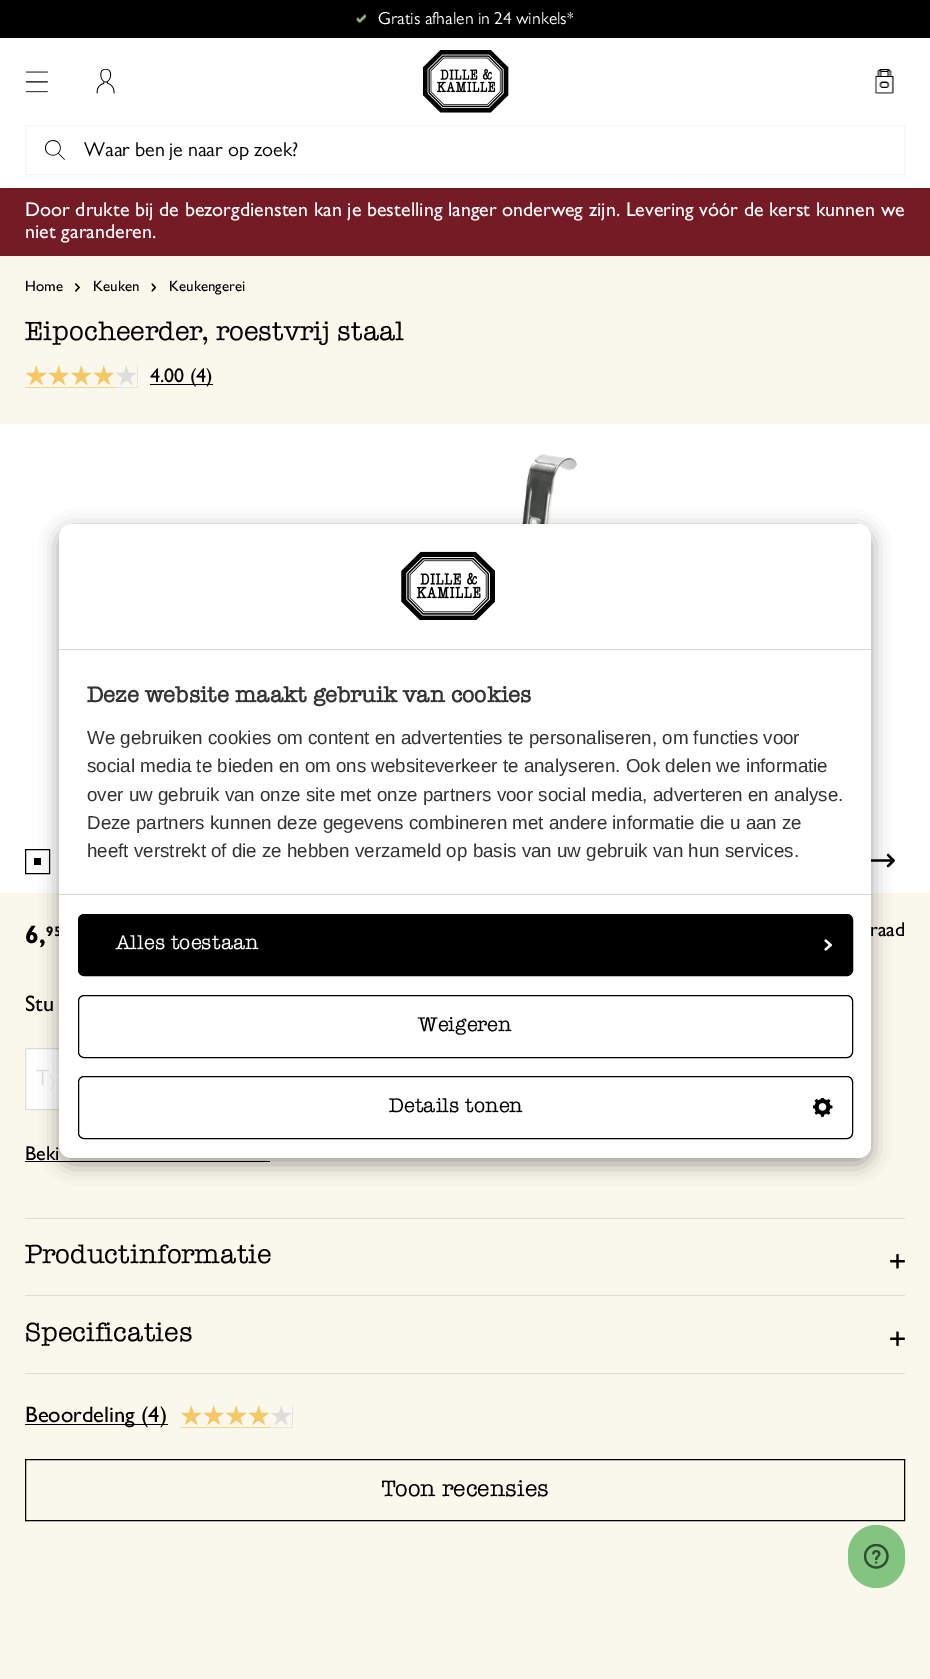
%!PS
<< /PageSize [930 1679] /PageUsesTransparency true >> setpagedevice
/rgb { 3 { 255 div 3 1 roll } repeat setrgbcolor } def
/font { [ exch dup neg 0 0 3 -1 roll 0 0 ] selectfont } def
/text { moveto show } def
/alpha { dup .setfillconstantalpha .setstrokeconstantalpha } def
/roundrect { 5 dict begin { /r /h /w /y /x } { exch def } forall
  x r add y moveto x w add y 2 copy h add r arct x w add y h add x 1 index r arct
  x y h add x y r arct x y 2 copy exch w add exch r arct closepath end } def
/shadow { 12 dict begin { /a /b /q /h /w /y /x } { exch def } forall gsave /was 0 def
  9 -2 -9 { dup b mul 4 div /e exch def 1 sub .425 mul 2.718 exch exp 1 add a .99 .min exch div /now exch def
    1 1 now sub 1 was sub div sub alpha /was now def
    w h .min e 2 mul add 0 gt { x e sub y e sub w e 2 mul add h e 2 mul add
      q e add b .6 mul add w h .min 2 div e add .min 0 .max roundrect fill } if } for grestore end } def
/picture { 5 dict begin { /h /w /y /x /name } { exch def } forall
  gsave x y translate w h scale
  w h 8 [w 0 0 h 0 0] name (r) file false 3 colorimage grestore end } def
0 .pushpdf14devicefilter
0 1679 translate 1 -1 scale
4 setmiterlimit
250 248 237 rgb
0 0 930 1679 rectfill
116 27 37 rgb
0 188 930 68 rectfill
0 0 0 rgb
0 0 930 188 0 3 0.1 shadow
255 255 255 rgb
0 38 930 150 rectfill
0 0 0 rgb
0 0 930 38 rectfill
(img_01.rgb) 356 14 10 10 picture
(img_02.rgb) 25 71 23 22 picture
(img_03.rgb) 96 69 19 25 picture
(img_04.rgb) 422 50 87 63 picture
(img_05.rgb) 875 69 19 25 picture
(img_06.rgb) 45 140 20 20 picture
245 245 245 rgb
25.5 125.5 879 49 rectstroke
(img_07.rgb) 75 283 5 9 picture
(img_08.rgb) 151 283 5 9 picture
244 200 103 rgb
25 365 90 23 rectfill
221 221 221 rgb
115 365 23 23 rectfill
(img_09.rgb) 25 365 113 23 picture
0 0 0 rgb
150 384 63 1 rectfill
255 255 255 rgb
0 424 930 469 rectfill
(img_10.rgb) 351 454 227 70 picture
0 0 0 rgb
34 858 7 7 rectfill
25.5 849.5 24 24 rectstroke
(img_11.rgb) 871 853 24 15 picture
255 255 255 rgb
26 1049 33 60 rectfill
221 221 221 rgb
25.5 1048.5 735 61 rectstroke
0 0 0 rgb
25 1161 245 1 rectfill
221 221 221 rgb
25 1373 880 1 rectfill
25 1218 880 1 rectfill
(img_12.rgb) 890 1254 15 15 picture
25 1295 880 1 rectfill
(img_13.rgb) 890 1331 15 15 picture
0 0 0 rgb
25 1424 143 1 rectfill
244 200 103 rgb
180 1405 90 23 rectfill
221 221 221 rgb
270 1405 23 23 rectfill
(img_14.rgb) 180 1405 113 23 picture
0 0 0 rgb
25.5 1459.5 879 61 rectstroke
59 530 812 634 13 9.5 0.19 shadow
59 530 812 634 13 9.5 0.2 shadow
131 196 129 rgb
848 1525 57 63 28.5 roundrect fill
(img_18.rgb) 864 1544 25 25 picture
/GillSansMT-Light 17.5 font
255 255 255 rgb
(Gratis afhalen in 24 winkels*) 378 24 text
gsave
84 140 799 20 rectclip
/GillSansMT-Light 20 font
0 0 0 rgb
(Waar ben je naar op zoek?) 84 156 text
grestore
/GillSansMT-Medium 20 font
(Door drukte bij de bezorgdiensten kan je bestelling langer onderweg zijn. Levering vóór de kerst kunnen we) 25 216 text
(niet garanderen.) 25 238 text
/GillSansMT-Medium 15 font
0 0 0 rgb
(Home) 25 291 text
(Keuken) 93 291 text
(Keukengerei) 169 291 text
/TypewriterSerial-Regular 25 font
(Eipocheerder, roestvrij staal) 25 340 text
/GillSansMT-Medium 20 font
(4.00 \(4\)) 150 382 text
/GillSansMT-Bold 25 font
(6,) 25 943 text
/GillSansMT-Bold 14 font
(95) 46 936 text
/GillSansMT-Medium 20 font
(raad) 870 936 text
/GillSansMT-Medium 22.5 font
(Stu) 25 1011 text
/GillSansMT-Light 22.5 font
221 221 221 rgb
(Ty) 36 1085 text
/GillSansMT-Medium 20 font
0 0 0 rgb
(Beki) 25 1160 text
/TypewriterSerial-Regular 25 font
(Productinformatie) 25 1263 text
(Specificaties) 25 1341 text
/GillSansMT-Medium 22.5 font
(Beoordeling \(4\)) 25 1422 text
/TypewriterSerial-Regular 21.25 font
(Toon recensies) 382 1496 text
255 255 255 rgb
59 524 812 634 13 roundrect fill
214 214 214 rgb
59 649 812 1 rectfill
(img_15.rgb) 401 551 94 69 picture
/TypewriterSerial-Bold 20.6 font
51 51 51 rgb
(Deze website maakt gebruik van cookies) 87 702 text
/LiberationSans-Regular 18.75 font
(We gebruiken cookies om content en advertenties te personaliseren, om functies voor) 87 744 text
(social media te bieden en om ons websiteverkeer te analyseren. Ook delen we informatie) 87 772 text
(over uw gebruik van onze site met onze partners voor social media, adverteren en analyse.) 87 801 text
(Deze partners kunnen deze gegevens combineren met andere informatie die u aan ze) 87 829 text
(heeft verstrekt of die ze hebben verzameld op basis van uw gebruik van hun services.) 87 857 text
255 255 255 rgb
59 894 moveto 812 0 rlineto 0 251 rlineto 0 7 -6 13 -13 13 rcurveto -786 0 rlineto -7 0 -13 -6 -13 -13 rcurveto closepath fill
214 214 214 rgb
59 894 812 1 rectfill
0 0 0 rgb
78.5 914.5 774 61 5.5 roundrect gsave fill grestore
stroke
/TypewriterSerial-Regular 18.75 font
255 255 255 rgb
(Alles toestaan) 116 949 text
(img_16.rgb) 824 939 8 12 picture
0 0 0 rgb
78.5 995.5 774 62 5.5 roundrect stroke
(Weigeren) 418 1031 text
78.5 1076.5 774 62 5.5 roundrect stroke
(Details tonen) 389 1112 text
(img_17.rgb) 813 1098 20 19 picture
.poppdf14devicefilter showpage
